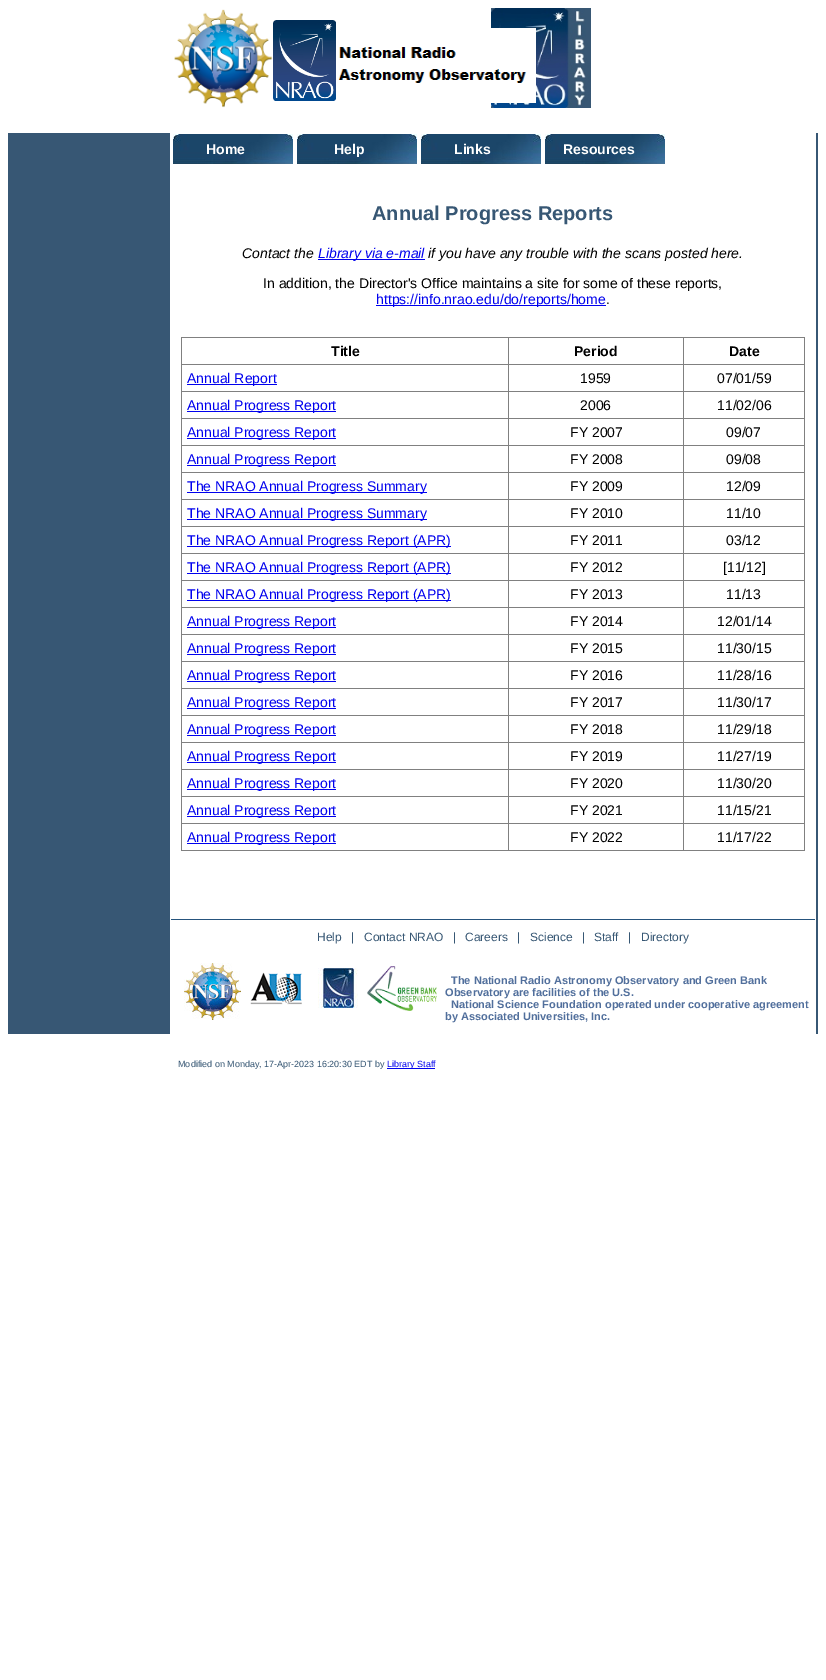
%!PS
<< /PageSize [826 1680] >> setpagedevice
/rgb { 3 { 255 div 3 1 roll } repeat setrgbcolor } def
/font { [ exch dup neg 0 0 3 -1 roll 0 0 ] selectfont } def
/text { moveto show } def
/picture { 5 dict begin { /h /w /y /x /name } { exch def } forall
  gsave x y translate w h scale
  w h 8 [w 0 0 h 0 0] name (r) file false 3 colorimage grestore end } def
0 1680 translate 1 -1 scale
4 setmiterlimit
255 255 255 rgb
0 0 826 1680 rectfill
(img_01.rgb) 174 9 99 99 picture
(img_02.rgb) 273 20 63 81 picture
(img_04.rgb) 491 8 100 100 picture
(img_03.rgb) 338 28 198 75 picture
55 87 116 rgb
8 133 162 901 rectfill
(img_05.rgb) 173 134 120 30 picture
(img_05.rgb) 297 134 120 30 picture
(img_05.rgb) 421 134 120 30 picture
(img_05.rgb) 545 134 120 30 picture
0 0 238 rgb
318 259 107 1 rectfill
376 305 230 1 rectfill
128 128 128 rgb
181 337 624 1 rectfill
804 337 1 514 rectfill
181 850 624 1 rectfill
181 337 1 514 rectfill
683 364 122 1 rectfill
683 391 122 1 rectfill
683 418 122 1 rectfill
683 445 122 1 rectfill
683 472 122 1 rectfill
683 499 122 1 rectfill
683 526 122 1 rectfill
683 553 122 1 rectfill
683 580 122 1 rectfill
683 607 122 1 rectfill
683 634 122 1 rectfill
683 661 122 1 rectfill
683 688 122 1 rectfill
683 715 122 1 rectfill
683 742 122 1 rectfill
683 769 122 1 rectfill
683 796 122 1 rectfill
683 823 122 1 rectfill
683 823 1 28 rectfill
508 823 176 1 rectfill
683 796 1 28 rectfill
508 796 176 1 rectfill
683 769 1 28 rectfill
508 769 176 1 rectfill
683 742 1 28 rectfill
508 742 176 1 rectfill
683 715 1 28 rectfill
508 715 176 1 rectfill
683 688 1 28 rectfill
508 688 176 1 rectfill
683 661 1 28 rectfill
508 661 176 1 rectfill
683 634 1 28 rectfill
508 634 176 1 rectfill
683 607 1 28 rectfill
508 607 176 1 rectfill
683 580 1 28 rectfill
508 580 176 1 rectfill
683 553 1 28 rectfill
508 553 176 1 rectfill
683 526 1 28 rectfill
508 526 176 1 rectfill
683 499 1 28 rectfill
508 499 176 1 rectfill
683 472 1 28 rectfill
508 472 176 1 rectfill
683 445 1 28 rectfill
508 445 176 1 rectfill
683 418 1 28 rectfill
508 418 176 1 rectfill
683 391 1 28 rectfill
508 391 176 1 rectfill
683 364 1 28 rectfill
508 364 176 1 rectfill
508 823 1 28 rectfill
181 823 328 1 rectfill
508 796 1 28 rectfill
181 796 328 1 rectfill
508 769 1 28 rectfill
181 769 328 1 rectfill
508 742 1 28 rectfill
181 742 328 1 rectfill
508 715 1 28 rectfill
181 715 328 1 rectfill
508 688 1 28 rectfill
181 688 328 1 rectfill
508 661 1 28 rectfill
181 661 328 1 rectfill
508 634 1 28 rectfill
181 634 328 1 rectfill
508 607 1 28 rectfill
181 607 328 1 rectfill
508 580 1 28 rectfill
181 580 328 1 rectfill
508 553 1 28 rectfill
181 553 328 1 rectfill
508 526 1 28 rectfill
181 526 328 1 rectfill
508 499 1 28 rectfill
181 499 328 1 rectfill
508 472 1 28 rectfill
181 472 328 1 rectfill
508 445 1 28 rectfill
181 445 328 1 rectfill
508 418 1 28 rectfill
181 418 328 1 rectfill
508 391 1 28 rectfill
181 391 328 1 rectfill
508 364 1 28 rectfill
181 364 328 1 rectfill
508 337 1 28 rectfill
683 337 1 28 rectfill
0 0 238 rgb
187 384 90 1 rectfill
187 411 149 1 rectfill
187 438 149 1 rectfill
187 465 149 1 rectfill
187 492 240 1 rectfill
187 519 240 1 rectfill
187 546 264 1 rectfill
187 573 264 1 rectfill
187 600 264 1 rectfill
187 627 149 1 rectfill
187 654 149 1 rectfill
187 681 149 1 rectfill
187 708 149 1 rectfill
187 735 149 1 rectfill
187 762 149 1 rectfill
187 789 149 1 rectfill
187 816 149 1 rectfill
187 843 149 1 rectfill
38 84 125 rgb
171 919 644 1 rectfill
(img_06.rgb) 184 963 57 57 picture
(img_07.rgb) 250 972 52 33 picture
(img_08.rgb) 318 968 40 40 picture
(img_09.rgb) 367 966 70 45 picture
55 87 116 rgb
816 133 2 901 rectfill
0 0 238 rgb
387 1068 48 1 rectfill
/LiberationSans-Bold 14 font
255 255 255 rgb
(Home) 206 154 text
(Help) 334 154 text
(Links) 454 154 text
(Resources) 563 154 text
/LiberationSans-Bold 20 font
55 87 116 rgb
(Annual Progress Reports) 372 220 text
/LiberationSans-Italic 14 font
0 0 0 rgb
(Contact the) 242 258 text
0 0 238 rgb
(Library via e-mail) 318 258 text
0 0 0 rgb
(if you have any trouble with the scans posted here.) 428 258 text
/LiberationSans-Regular 14 font
(In addition, the Director's Office maintains a site for some of these reports,) 263 288 text
0 0 238 rgb
(https://info.nrao.edu/do/reports/home) 376 304 text
0 0 0 rgb
(.) 606 304 text
/LiberationSans-Bold 14 font
(Title) 331 356 text
(Period) 574 356 text
(Date) 729 356 text
/LiberationSans-Regular 14 font
0 0 238 rgb
(Annual Report) 187 383 text
0 0 0 rgb
(1959) 580 383 text
(07/01/59) 717 383 text
0 0 238 rgb
(Annual Progress Report) 187 410 text
0 0 0 rgb
(2006) 580 410 text
(11/02/06) 717 410 text
0 0 238 rgb
(Annual Progress Report) 187 437 text
0 0 0 rgb
(FY 2007) 570 437 text
(09/07) 726 437 text
0 0 238 rgb
(Annual Progress Report) 187 464 text
0 0 0 rgb
(FY 2008) 570 464 text
(09/08) 726 464 text
0 0 238 rgb
(The NRAO Annual Progress Summary) 187 491 text
0 0 0 rgb
(FY 2009) 570 491 text
(12/09) 726 491 text
0 0 238 rgb
(The NRAO Annual Progress Summary) 187 518 text
0 0 0 rgb
(FY 2010) 570 518 text
(11/10) 726 518 text
0 0 238 rgb
(The NRAO Annual Progress Report \(APR\)) 187 545 text
0 0 0 rgb
(FY 2011) 570 545 text
(03/12) 726 545 text
0 0 238 rgb
(The NRAO Annual Progress Report \(APR\)) 187 572 text
0 0 0 rgb
(FY 2012) 570 572 text
([11/12]) 723 572 text
0 0 238 rgb
(The NRAO Annual Progress Report \(APR\)) 187 599 text
0 0 0 rgb
(FY 2013) 570 599 text
(11/13) 726 599 text
0 0 238 rgb
(Annual Progress Report) 187 626 text
0 0 0 rgb
(FY 2014) 570 626 text
(12/01/14) 717 626 text
0 0 238 rgb
(Annual Progress Report) 187 653 text
0 0 0 rgb
(FY 2015) 570 653 text
(11/30/15) 717 653 text
0 0 238 rgb
(Annual Progress Report) 187 680 text
0 0 0 rgb
(FY 2016) 570 680 text
(11/28/16) 717 680 text
0 0 238 rgb
(Annual Progress Report) 187 707 text
0 0 0 rgb
(FY 2017) 570 707 text
(11/30/17) 717 707 text
0 0 238 rgb
(Annual Progress Report) 187 734 text
0 0 0 rgb
(FY 2018) 570 734 text
(11/29/18) 717 734 text
0 0 238 rgb
(Annual Progress Report) 187 761 text
0 0 0 rgb
(FY 2019) 570 761 text
(11/27/19) 717 761 text
0 0 238 rgb
(Annual Progress Report) 187 788 text
0 0 0 rgb
(FY 2020) 570 788 text
(11/30/20) 717 788 text
0 0 238 rgb
(Annual Progress Report) 187 815 text
0 0 0 rgb
(FY 2021) 570 815 text
(11/15/21) 717 815 text
0 0 238 rgb
(Annual Progress Report) 187 842 text
0 0 0 rgb
(FY 2022) 570 842 text
(11/17/22) 717 842 text
/LiberationSans-Regular 12 font
55 87 116 rgb
(Help) 317 941 text
(|) 351 941 text
(Contact NRAO) 364 941 text
(|) 453 941 text
(Careers) 465 941 text
(|) 517 941 text
(Science) 530 941 text
(|) 582 941 text
(Staff) 594 941 text
(|) 628 941 text
(Directory) 641 941 text
/LiberationSans-Bold 11 font
81 111 156 rgb
(The National Radio Astronomy Observatory and Green Bank) 451 984 text
(Observatory are facilities of the U.S.) 445 996 text
(National Science Foundation operated under cooperative agreement) 451 1008 text
(by Associated Universities, Inc.) 445 1020 text
/LiberationSans-Regular 9 font
55 87 116 rgb
(Modified on Monday, 17-Apr-2023 16:20:30 EDT by) 178 1067 text
0 0 238 rgb
(Library Staff) 387 1067 text
showpage
